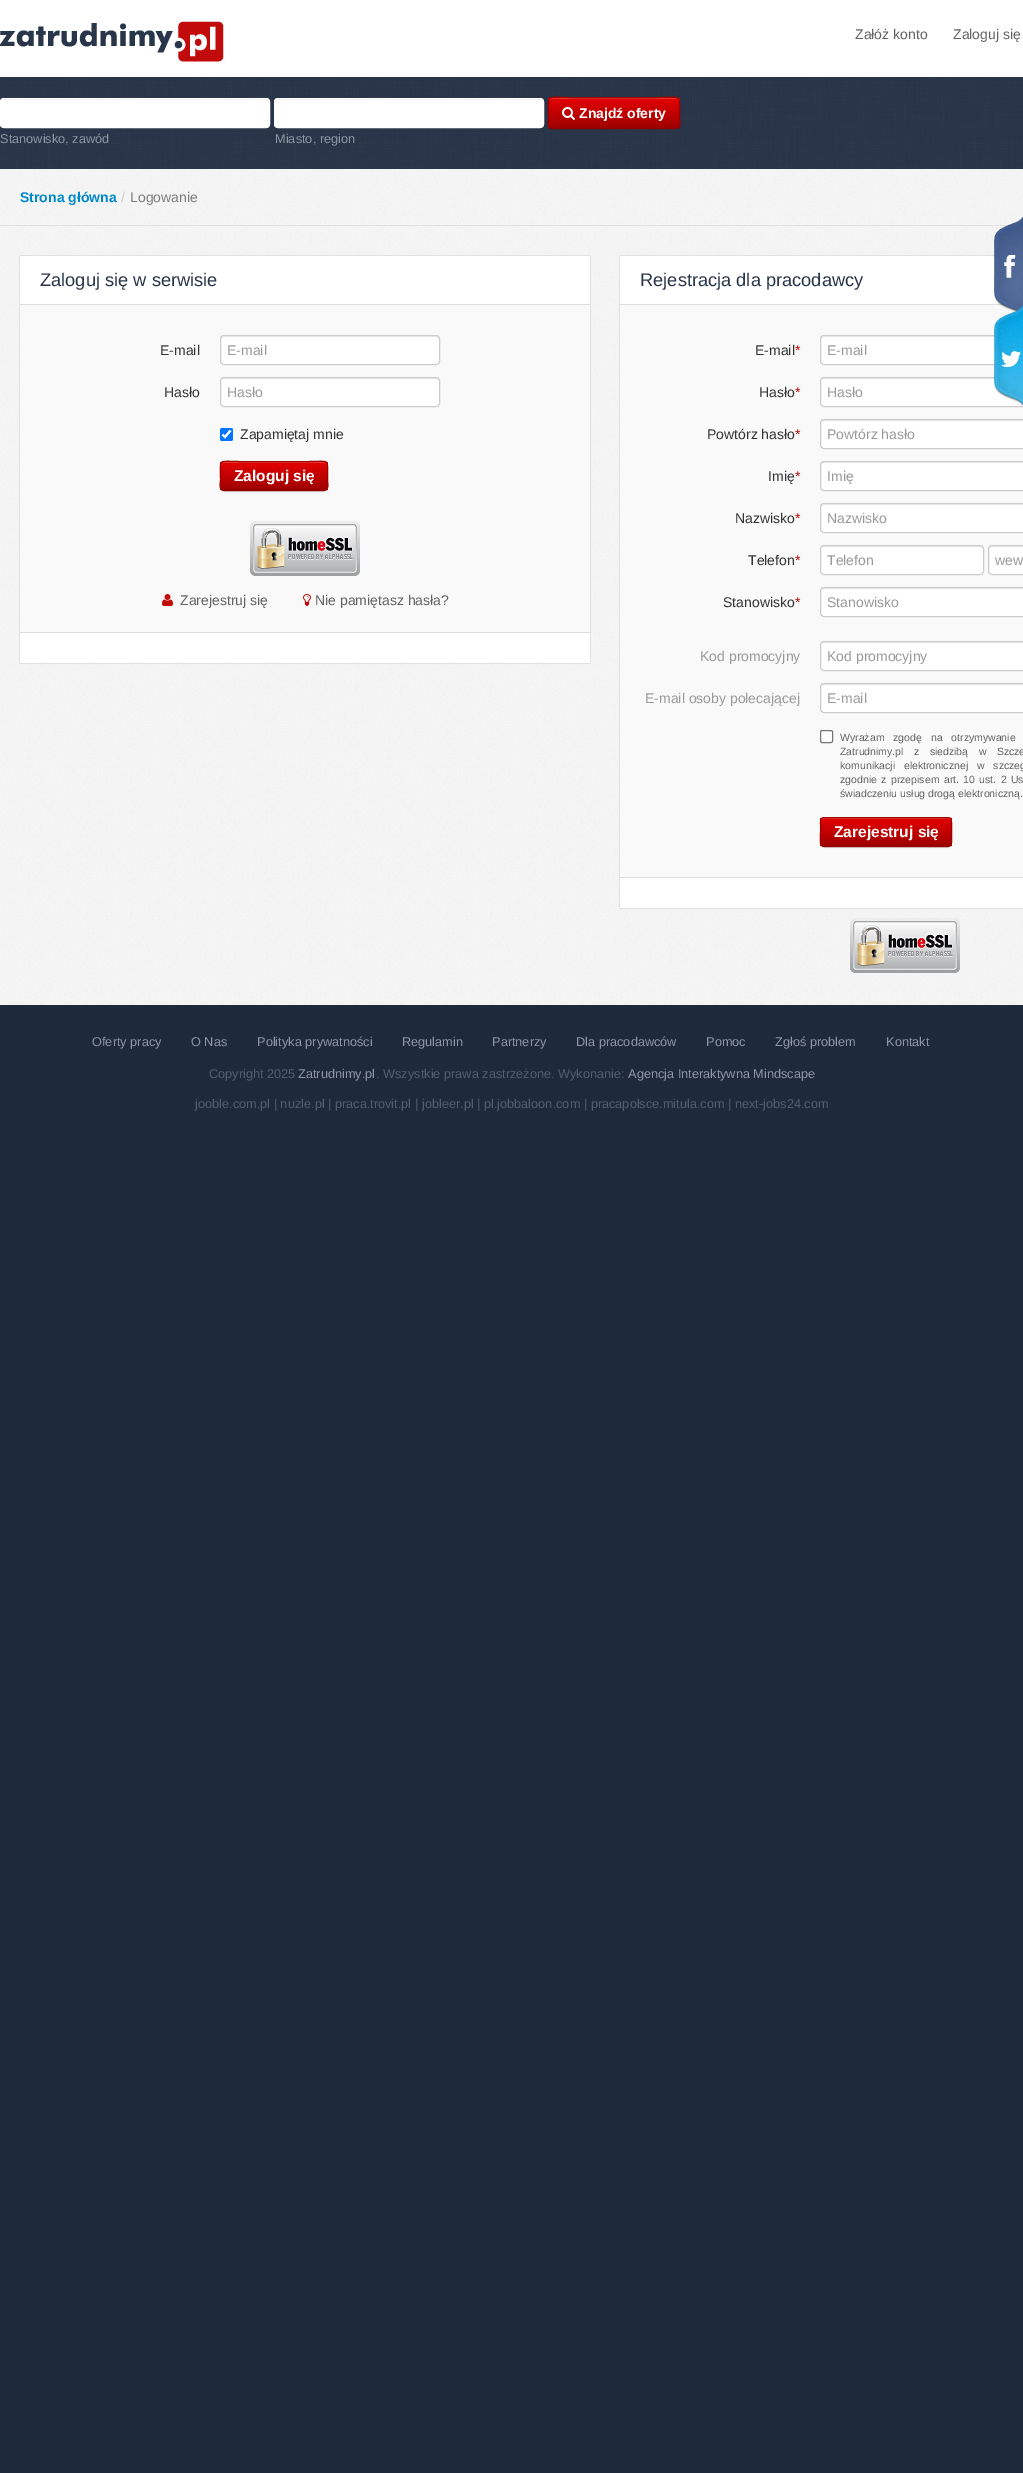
%!PS
<< /PageSize [1023 2473] /PageUsesTransparency true >> setpagedevice
/rgb { 3 { 255 div 3 1 roll } repeat setrgbcolor } def
/font { [ exch dup neg 0 0 3 -1 roll 0 0 ] selectfont } def
/text { moveto show } def
/alpha { dup .setfillconstantalpha .setstrokeconstantalpha } def
/roundrect { 5 dict begin { /r /h /w /y /x } { exch def } forall
  x r add y moveto x w add y 2 copy h add r arct x w add y h add x 1 index r arct
  x y h add x y r arct x y 2 copy exch w add exch r arct closepath end } def
/shadow { 12 dict begin { /a /b /q /h /w /y /x } { exch def } forall gsave /was 0 def
  9 -2 -9 { dup b mul 4 div /e exch def 1 sub .425 mul 2.718 exch exp 1 add a .99 .min exch div /now exch def
    1 1 now sub 1 was sub div sub alpha /was now def
    w h .min e 2 mul add 0 gt { x e sub y e sub w e 2 mul add h e 2 mul add
      q e add b .6 mul add w h .min 2 div e add .min 0 .max roundrect fill } if } for grestore end } def
/picture { 5 dict begin { /h /w /y /x /name } { exch def } forall
  gsave x y translate w h scale
  w h 8 [w 0 0 h 0 0] name (r) file false 3 colorimage grestore end } def
0 .pushpdf14devicefilter
0 2473 translate 1 -1 scale
4 setmiterlimit
30 41 58 rgb
0 0 1023 2473 rectfill
255 255 255 rgb
0 0 1023 77 rectfill
(img_01.rgb) 0 21 224 41 picture
(img_02.rgb) 0 77 1023 92 picture
0 98 270 30 4 roundrect fill
236 236 236 rgb
4 100 moveto 262 0 rlineto 2 0 3 1 3 3 rcurveto 0 -2 -1 -4 -3 -4 rcurveto -262 0 rlineto -2 0 -3 2 -3 4 rcurveto 0 -2 1 -3 3 -3 rcurveto closepath fill
255 255 255 rgb
0.5 98.5 269 29 3.5 roundrect stroke
274 98 270 30 4 roundrect fill
236 236 236 rgb
278 100 moveto 262 0 rlineto 2 0 3 1 3 3 rcurveto 0 -2 -1 -4 -3 -4 rcurveto -262 0 rlineto -2 0 -3 2 -3 4 rcurveto 0 -2 1 -3 3 -3 rcurveto closepath fill
255 255 255 rgb
274.5 98.5 269 29 3.5 roundrect stroke
158 0 0 rgb
548 97 132 32 4 roundrect fill
gsave
548 97 132 32 4 roundrect clip newpath
gsave 548 98 moveto 132 0 rlineto 0 30 rlineto -132 0 rlineto closepath clip newpath
<< /ShadingType 2 /ColorSpace /DeviceRGB /Coords [614 98 614 128] /Extend [true true] /Function << /FunctionType 2 /Domain [0 1] /C0 [0.898 0 0] /C1 [0.62 0 0] /N 1 >> >> shfill grestore
grestore
0.2 alpha
255 255 255 rgb
552 99 moveto 124 0 rlineto 2 0 3 1 3 3 rcurveto 0 -2 0 -4 -2 -4 rcurveto -126 0 rlineto -2 0 -2 2 -2 4 rcurveto 0 -2 1 -3 3 -3 rcurveto closepath fill
1 alpha
140 0 0 rgb
678.5 127.5 moveto -0.5 0.5 -1.5 1 -2.5 1 rcurveto -124 0 rlineto -1 0 -2 -0.5 -2.5 -1 rcurveto stroke
158 0 0 rgb
549.5 127.5 moveto -2.5 -2.5 -1 -7.5 -1 -10.5 rcurveto 0 -24.5 -3.5 -19.5 24 -19.5 rcurveto 83 0 rlineto 27.5 0 24 -5 24 19.5 rcurveto 0 3 1.5 8 -1 10.5 rcurveto stroke
(img_03.rgb) 562 107 13 13 picture
(img_04.rgb) 0 169 1023 56 picture
225 225 225 rgb
0 225 1008 1 rectfill
(img_05.rgb) 23 169 466 52 picture
(img_07.rgb) 0 226 1023 779 picture
0 0 0 rgb
620 256 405 652 0 0.5 0.3 shadow
255 255 255 rgb
620 256 403 652 rectfill
249 249 249 rgb
620 305 403 572 rectfill
221 221 221 rgb
620 304 383 1 rectfill
(img_06.rgb) 994 216 29 96 picture
0 0 0 rgb
20 256 570 407 0 0.5 0.3 shadow
255 255 255 rgb
20 256 570 407 rectfill
249 249 249 rgb
20 305 570 327 rectfill
221 221 221 rgb
20 304 570 1 rectfill
20 632 570 1 rectfill
255 255 255 rgb
220 335 220 30 4 roundrect fill
236 236 236 rgb
224 337 moveto 212 0 rlineto 2 0 3 1 3 3 rcurveto 0 -1 rlineto 0 -2 -1 -3 -3 -3 rcurveto -212 0 rlineto -2 0 -3 1 -3 3 rcurveto 0 1 rlineto 0 -2 1 -3 3 -3 rcurveto closepath fill
204 204 204 rgb
220.5 335.5 219 29 3.5 roundrect stroke
255 255 255 rgb
220 377 220 30 4 roundrect fill
236 236 236 rgb
224 379 moveto 212 0 rlineto 2 0 3 1 3 3 rcurveto 0 -1 rlineto 0 -2 -1 -3 -3 -3 rcurveto -212 0 rlineto -2 0 -3 1 -3 3 rcurveto 0 1 rlineto 0 -2 1 -3 3 -3 rcurveto closepath fill
204 204 204 rgb
220.5 377.5 219 29 3.5 roundrect stroke
0 117 255 rgb
220 428 13 13 2 roundrect fill
255 255 255 rgb
2.1 setlinewidth
222.5 434.5 moveto 2.5 2.5 rlineto 5.5 -6.5 rlineto stroke
0 0 0 rgb
220 462 108 30 4 1 0.05 shadow
158 0 0 rgb
220 461 108 30 4 roundrect fill
gsave
220 461 108 30 4 roundrect clip newpath
gsave 220 462 moveto 108 0 rlineto 0 28 rlineto -108 0 rlineto closepath clip newpath
<< /ShadingType 2 /ColorSpace /DeviceRGB /Coords [274 462 274 490] /Extend [true true] /Function << /FunctionType 2 /Domain [0 1] /C0 [0.898 0 0] /C1 [0.62 0 0] /N 1 >> >> shfill grestore
grestore
0.2 alpha
255 255 255 rgb
224 463 moveto 100 0 rlineto 2 0 3 1 3 3 rcurveto 0 -8 -17 -4 -20 -4 rcurveto -66 0 rlineto -3 0 -20 -4 -20 4 rcurveto 0 -2 1 -3 3 -3 rcurveto closepath fill
1 alpha
140 0 0 rgb
1 setlinewidth
326.5 489.5 moveto -2.5 1 rlineto -100.5 0 rlineto -2 -1 rlineto stroke
158 0 0 rgb
221.5 489.5 moveto -2.5 -2.5 -1 -7 -1 -10 rcurveto 0 -22 -3.5 -18 20 -18 rcurveto 67 0 rlineto 23.5 0 20 -4 20 18 rcurveto 0 3 1.5 7.5 -1 10 rcurveto stroke
(img_08.rgb) 250 521 110 55 picture
(img_09.rgb) 162 594 11 12 picture
(img_10.rgb) 303 594 8 12 picture
221 221 221 rgb
620 877 403 1 rectfill
255 255 255 rgb
820 335 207 30 4 roundrect fill
236 236 236 rgb
824 337 moveto 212 0 rlineto 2 0 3 1 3 3 rcurveto 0 -1 rlineto 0 -2 -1 -3 -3 -3 rcurveto -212 0 rlineto -2 0 -3 1 -3 3 rcurveto 0 1 rlineto 0 -2 1 -3 3 -3 rcurveto closepath fill
204 204 204 rgb
820.5 335.5 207 29 3.5 roundrect stroke
255 255 255 rgb
820 377 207 30 4 roundrect fill
236 236 236 rgb
824 379 moveto 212 0 rlineto 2 0 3 1 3 3 rcurveto 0 -1 rlineto 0 -2 -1 -3 -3 -3 rcurveto -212 0 rlineto -2 0 -3 1 -3 3 rcurveto 0 1 rlineto 0 -2 1 -3 3 -3 rcurveto closepath fill
204 204 204 rgb
820.5 377.5 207 29 3.5 roundrect stroke
255 255 255 rgb
820 419 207 30 4 roundrect fill
236 236 236 rgb
824 421 moveto 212 0 rlineto 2 0 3 1 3 3 rcurveto 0 -1 rlineto 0 -2 -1 -3 -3 -3 rcurveto -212 0 rlineto -2 0 -3 1 -3 3 rcurveto 0 1 rlineto 0 -2 1 -3 3 -3 rcurveto closepath fill
204 204 204 rgb
820.5 419.5 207 29 3.5 roundrect stroke
255 255 255 rgb
820 461 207 30 4 roundrect fill
236 236 236 rgb
824 463 moveto 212 0 rlineto 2 0 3 1 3 3 rcurveto 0 -1 rlineto 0 -2 -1 -3 -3 -3 rcurveto -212 0 rlineto -2 0 -3 1 -3 3 rcurveto 0 1 rlineto 0 -2 1 -3 3 -3 rcurveto closepath fill
204 204 204 rgb
820.5 461.5 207 29 3.5 roundrect stroke
255 255 255 rgb
820 503 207 30 4 roundrect fill
236 236 236 rgb
824 505 moveto 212 0 rlineto 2 0 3 1 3 3 rcurveto 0 -1 rlineto 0 -2 -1 -3 -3 -3 rcurveto -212 0 rlineto -2 0 -3 1 -3 3 rcurveto 0 1 rlineto 0 -2 1 -3 3 -3 rcurveto closepath fill
204 204 204 rgb
820.5 503.5 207 29 3.5 roundrect stroke
255 255 255 rgb
820 545 164 30 4 roundrect fill
236 236 236 rgb
824 547 moveto 156 0 rlineto 2 0 3 1 3 3 rcurveto 0 -2 -1 -4 -3 -4 rcurveto -157 0 rlineto -2 0 -2 2 -2 4 rcurveto 0 -2 1 -3 3 -3 rcurveto closepath fill
204 204 204 rgb
820.5 545.5 163 29 3.5 roundrect stroke
255 255 255 rgb
988 545 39 30 4 roundrect fill
236 236 236 rgb
992 547 moveto 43 0 rlineto 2 0 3 1 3 3 rcurveto 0 -6 -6 -4 -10 -4 rcurveto -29 0 rlineto -4 0 -10 -2 -10 4 rcurveto 0 -2 1 -3 3 -3 rcurveto closepath fill
204 204 204 rgb
988.5 545.5 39 29 3.5 roundrect stroke
255 255 255 rgb
820 587 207 30 4 roundrect fill
236 236 236 rgb
824 589 moveto 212 0 rlineto 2 0 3 1 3 3 rcurveto 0 -1 rlineto 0 -2 -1 -3 -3 -3 rcurveto -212 0 rlineto -2 0 -3 1 -3 3 rcurveto 0 1 rlineto 0 -2 1 -3 3 -3 rcurveto closepath fill
204 204 204 rgb
820.5 587.5 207 29 3.5 roundrect stroke
255 255 255 rgb
820 641 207 30 4 roundrect fill
236 236 236 rgb
824 643 moveto 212 0 rlineto 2 0 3 1 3 3 rcurveto 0 -1 rlineto 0 -2 -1 -3 -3 -3 rcurveto -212 0 rlineto -2 0 -3 1 -3 3 rcurveto 0 1 rlineto 0 -2 1 -3 3 -3 rcurveto closepath fill
204 204 204 rgb
820.5 641.5 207 29 3.5 roundrect stroke
255 255 255 rgb
820 683 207 30 4 roundrect fill
236 236 236 rgb
824 685 moveto 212 0 rlineto 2 0 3 1 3 3 rcurveto 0 -1 rlineto 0 -2 -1 -3 -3 -3 rcurveto -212 0 rlineto -2 0 -3 1 -3 3 rcurveto 0 1 rlineto 0 -2 1 -3 3 -3 rcurveto closepath fill
204 204 204 rgb
820.5 683.5 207 29 3.5 roundrect stroke
255 255 255 rgb
820.5 730.5 12 12 1.5 roundrect gsave fill grestore
118 118 118 rgb
stroke
0 0 0 rgb
820 818 132 30 4 1 0.05 shadow
gsave
820 817 132 30 4 roundrect clip newpath
gsave 820 818 moveto 132 0 rlineto 0 28 rlineto -132 0 rlineto closepath clip newpath
<< /ShadingType 2 /ColorSpace /DeviceRGB /Coords [886 818 886 846] /Extend [true true] /Function << /FunctionType 2 /Domain [0 1] /C0 [0.898 0 0] /C1 [0.62 0 0] /N 1 >> >> shfill grestore
grestore
0.2 alpha
255 255 255 rgb
824 819 moveto 124 0 rlineto 2 0 3 1 3 3 rcurveto 0 -2 0 -4 -2 -4 rcurveto -126 0 rlineto -2 0 -2 2 -2 4 rcurveto 0 -2 1 -3 3 -3 rcurveto closepath fill
1 alpha
140 0 0 rgb
950.5 845.5 moveto -0.5 0.5 -1.5 1 -2.5 1 rcurveto -124 0 rlineto -1 0 -2 -0.5 -2.5 -1 rcurveto stroke
158 0 0 rgb
821.5 845.5 moveto -2 -2 -1 -10.5 -1 -13.5 rcurveto 0 -7.5 rlineto 0 -2.5 -0.5 -7 3.5 -7 rcurveto 124 0 rlineto 4 0 3.5 4.5 3.5 7 rcurveto 0 7.5 rlineto 0 3 1 11.5 -1 13.5 rcurveto stroke
(img_11.rgb) 850 918 110 55 picture
(img_12.rgb) 994 306 29 101 picture
/LiberationSans-Regular 14 font
98 98 98 rgb
(Załóż konto) 855 39 text
(Zaloguj się) 953 39 text
/LiberationSans-Bold 14 font
255 255 255 rgb
(Znajdź oferty) 579 118 text
/LiberationSans-Regular 12.75 font
143 151 163 rgb
(Stanowisko, zawód) 0 143 text
(Miasto, region) 275 143 text
/LiberationSans-Bold 14 font
0 136 204 rgb
(Strona główna) 20 202 text
/LiberationSans-Regular 14 font
204 204 204 rgb
(/) 121 202 text
124 124 124 rgb
(Logowanie) 130 202 text
/LiberationSans-Regular 18.25 font
41 54 73 rgb
(Zaloguj się w serwisie) 40 286 text
/LiberationSans-Regular 14 font
51 51 51 rgb
(E-mail) 160 355 text
153 153 153 rgb
(E-mail) 227 355 text
51 51 51 rgb
(Hasło) 164 397 text
153 153 153 rgb
(Hasło) 227 397 text
51 51 51 rgb
(Zapamiętaj mnie) 240 439 text
/LiberationSans-Bold 15.5 font
255 255 255 rgb
(Zaloguj się) 234 481 text
/LiberationSans-Regular 14 font
98 98 98 rgb
(Zarejestruj się) 180 605 text
(Nie pamiętasz hasła?) 315 605 text
/LiberationSans-Regular 18.25 font
41 54 73 rgb
(Rejestracja dla pracodawcy) 640 286 text
/LiberationSans-Regular 14 font
51 51 51 rgb
(E-mail) 755 355 text
193 11 11 rgb
(*) 795 355 text
153 153 153 rgb
(E-mail) 827 355 text
51 51 51 rgb
(Hasło) 759 397 text
193 11 11 rgb
(*) 795 397 text
153 153 153 rgb
(Hasło) 827 397 text
51 51 51 rgb
(Powtórz hasło) 707 439 text
193 11 11 rgb
(*) 795 439 text
153 153 153 rgb
(Powtórz hasło) 827 439 text
51 51 51 rgb
(Imię) 768 481 text
193 11 11 rgb
(*) 795 481 text
153 153 153 rgb
(Imię) 827 481 text
51 51 51 rgb
(Nazwisko) 735 523 text
193 11 11 rgb
(*) 795 523 text
153 153 153 rgb
(Nazwisko) 827 523 text
51 51 51 rgb
(Telefon) 748 565 text
193 11 11 rgb
(*) 795 565 text
153 153 153 rgb
(Telefon) 827 565 text
(wew) 995 565 text
51 51 51 rgb
(Stanowisko) 723 607 text
193 11 11 rgb
(*) 795 607 text
153 153 153 rgb
(Stanowisko) 827 607 text
(Kod promocyjny) 700 661 text
(Kod promocyjny) 827 661 text
(E-mail osoby polecającej) 645 703 text
(E-mail) 827 703 text
/LiberationSans-Regular 10.5 font
98 98 98 rgb
840 741 moveto 6 0 32 (Wyrażam zgodę na otrzymywanie) widthshow
840 755 moveto 7.5 0 32 (Zatrudnimy.pl z siedzibą w Szcze) widthshow
840 769 moveto 6 0 32 (komunikacji elektronicznej w szczeg) widthshow
840 783 moveto 1.5 0 32 (zgodnie z przepisem art. 10 ust. 2 Us) widthshow
(świadczeniu usług drogą elektroniczną.) 840 797 text
/LiberationSans-Bold 15.5 font
255 255 255 rgb
(Zarejestruj się) 834 837 text
/LiberationSans-Regular 12.75 font
143 151 163 rgb
(Oferty pracy) 92 1046 text
(O Nas) 191 1046 text
(Polityka prywatności) 257 1046 text
(Regulamin) 402 1046 text
(Partnerzy) 492 1046 text
(Dla pracodawców) 576 1046 text
(Pomoc) 706 1046 text
(Zgłoś problem) 775 1046 text
(Kontakt) 886 1046 text
84 94 109 rgb
(Copyright 2025) 209 1078 text
143 151 163 rgb
(Zatrudnimy.pl) 298 1078 text
84 94 109 rgb
(. Wszystkie prawa zastrzeżone. Wykonanie:) 376 1078 text
143 151 163 rgb
(Agencja Interaktywna Mindscape) 628 1078 text
84 94 109 rgb
(jooble.com.pl | nuzle.pl | praca.trovit.pl | jobleer.pl | pl.jobbaloon.com | pracapolsce.mitula.com | next-jobs24.com) 195 1108 text
.poppdf14devicefilter showpage
